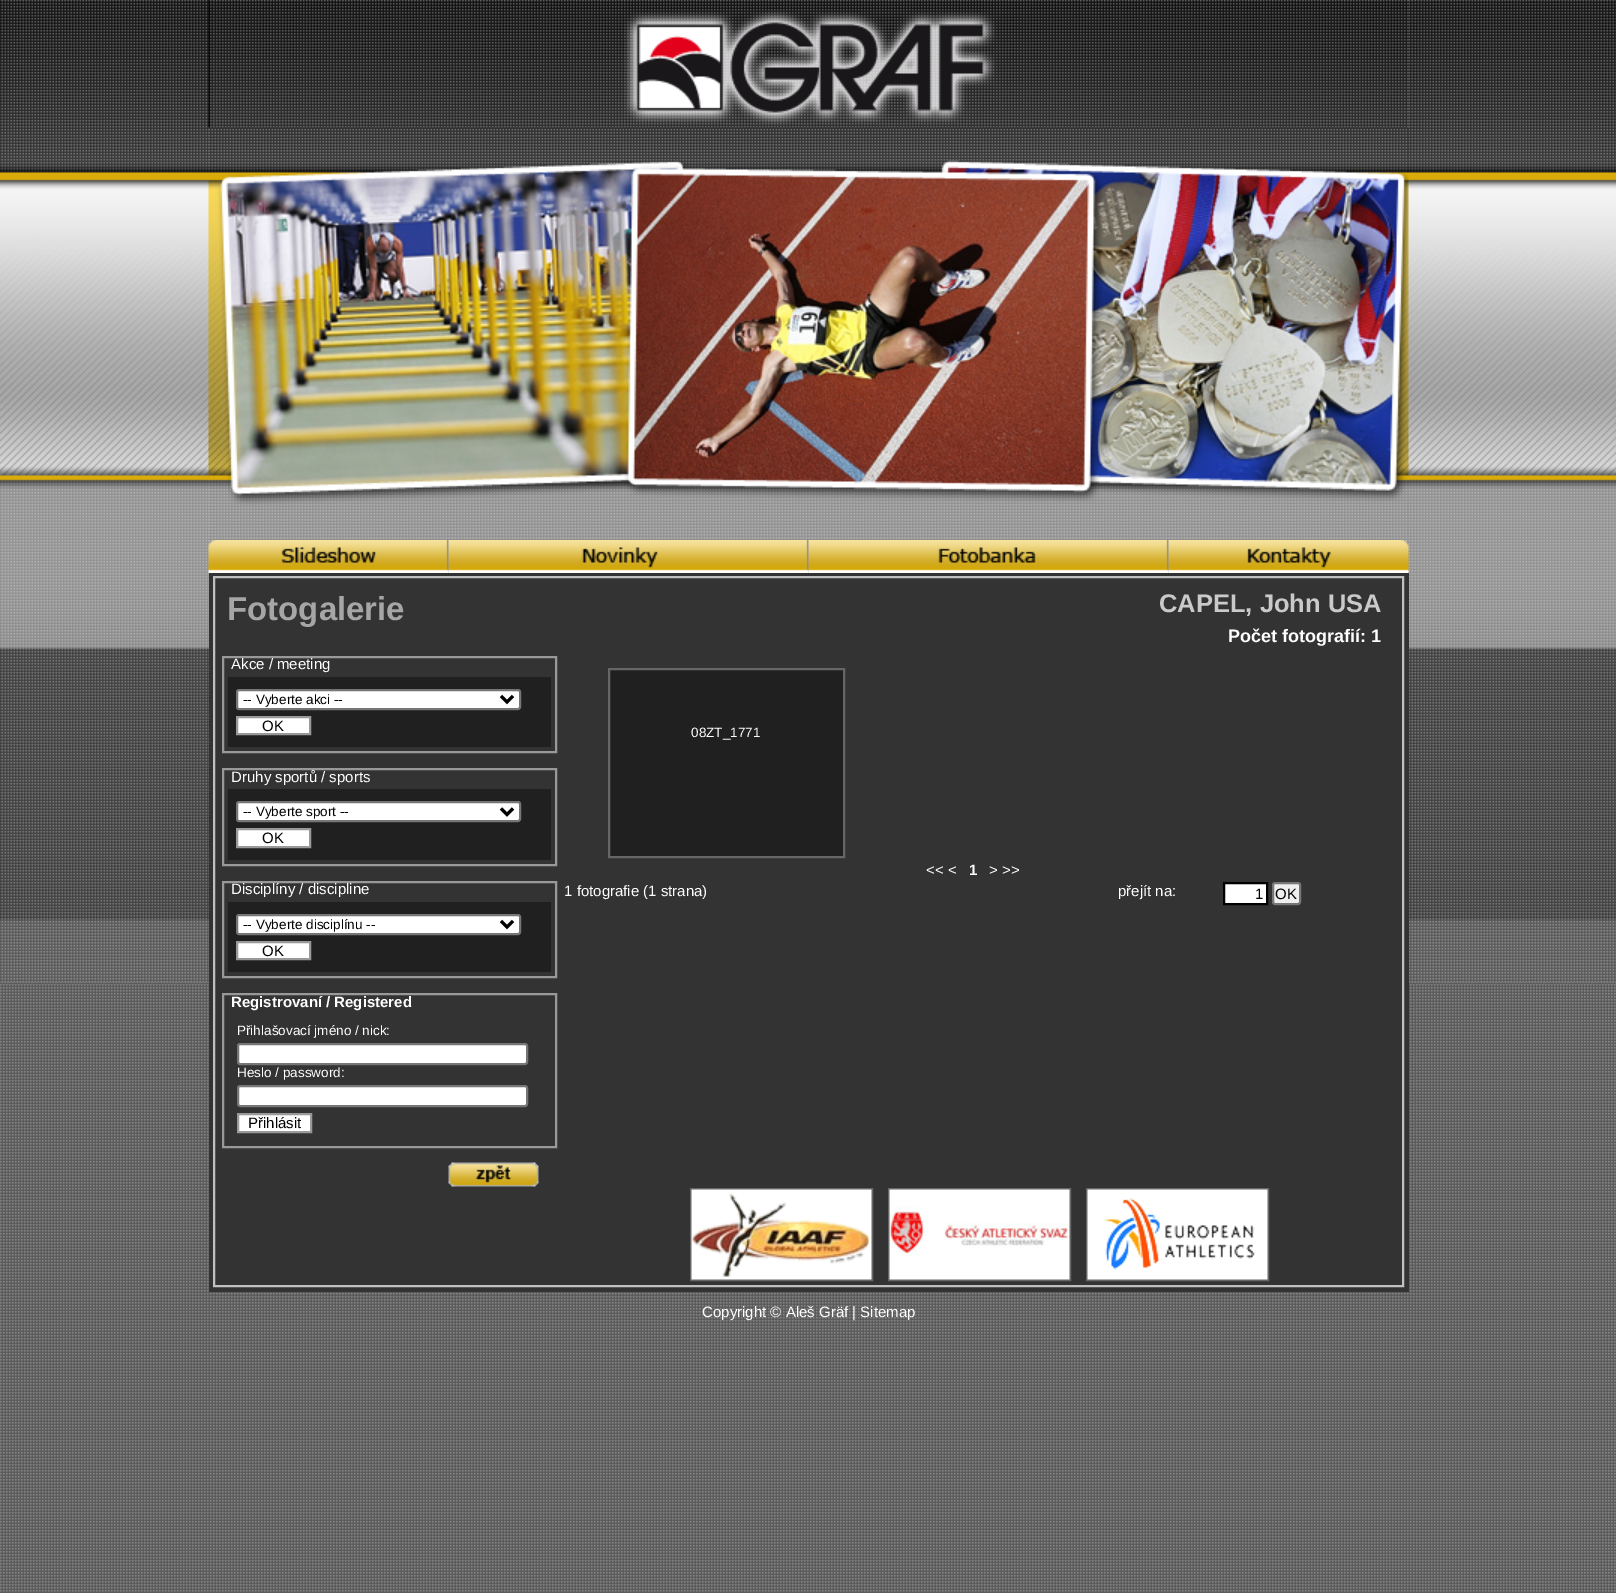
%!PS
<< /PageSize [1616 1593] >> setpagedevice
/rgb { 3 { 255 div 3 1 roll } repeat setrgbcolor } def
/font { [ exch dup neg 0 0 3 -1 roll 0 0 ] selectfont } def
/text { moveto show } def
/roundrect { 5 dict begin { /r /h /w /y /x } { exch def } forall
  x r add y moveto x w add y 2 copy h add r arct x w add y h add x 1 index r arct
  x y h add x y r arct x y 2 copy exch w add exch r arct closepath end } def
/picture { 5 dict begin { /h /w /y /x /name } { exch def } forall
  gsave x y translate w h scale
  w h 8 [w 0 0 h 0 0] name (r) file false 3 colorimage grestore end } def
0 1593 translate 1 -1 scale
4 setmiterlimit
255 255 255 rgb
0 0 1616 1593 rectfill
(img_01.rgb) 0 982 1616 611 picture
(img_02.rgb) 0 0 1616 983 picture
(img_03.rgb) 208 0 1201 128 picture
(img_04.rgb) 208 127 1201 397 picture
(img_05.rgb) 208 523 1201 17 picture
(img_06.rgb) 208 540 241 33 picture
(img_07.rgb) 448 540 361 33 picture
(img_08.rgb) 808 540 361 33 picture
(img_09.rgb) 1168 540 241 33 picture
51 51 51 rgb
209 573 1200 719 rectfill
192 192 192 rgb
2 setlinewidth
214 577 1189 709 rectstroke
153 153 153 rgb
223 657 333 95 rectstroke
32 32 32 rgb
228 677 323 70 rectfill
255 255 255 rgb
237 690 283 19 2 roundrect gsave fill grestore
118 118 118 rgb
stroke
0 0 0 rgb
3 setlinewidth
501 696 moveto 6 6 rlineto 6 -6 rlineto stroke
255 255 255 rgb
237 717 moveto 73 0 rlineto 0 17 rlineto -73 0 rlineto closepath gsave fill grestore
153 153 153 rgb
2 setlinewidth
stroke
223 769 333 96 rectstroke
32 32 32 rgb
228 789 323 71 rectfill
255 255 255 rgb
237 802 283 19 2 roundrect gsave fill grestore
118 118 118 rgb
stroke
0 0 0 rgb
3 setlinewidth
501 808.5 moveto 6 6 rlineto 6 -6 rlineto stroke
255 255 255 rgb
237 829 moveto 73 0 rlineto 0 18 rlineto -73 0 rlineto closepath gsave fill grestore
153 153 153 rgb
2 setlinewidth
stroke
223 882 333 95 rectstroke
32 32 32 rgb
228 902 323 70 rectfill
255 255 255 rgb
237 915 283 19 2 roundrect gsave fill grestore
118 118 118 rgb
stroke
0 0 0 rgb
3 setlinewidth
501 921 moveto 6 6 rlineto 6 -6 rlineto stroke
255 255 255 rgb
237 942 moveto 73 0 rlineto 0 17 rlineto -73 0 rlineto closepath gsave fill grestore
153 153 153 rgb
2 setlinewidth
stroke
223 994 333 153 rectstroke
255 255 255 rgb
238 1044 289 20 2 roundrect gsave fill grestore
118 118 118 rgb
stroke
255 255 255 rgb
238 1086 289 20 2 roundrect gsave fill grestore
118 118 118 rgb
stroke
255 255 255 rgb
238 1114 moveto 73 0 rlineto 0 18 rlineto -73 0 rlineto closepath gsave fill grestore
153 153 153 rgb
stroke
(img_10.rgb) 448 1162 91 25 picture
32 32 32 rgb
609 669 moveto 235 0 rlineto 0 188 rlineto -235 0 rlineto closepath gsave fill grestore
102 102 102 rgb
stroke
255 255 255 rgb
1224 883 moveto 43 0 rlineto 0 21 rlineto -43 0 rlineto closepath gsave fill grestore
0 0 0 rgb
stroke
239 239 239 rgb
1273 883 27 21 2 roundrect gsave fill grestore
118 118 118 rgb
stroke
102 102 102 rgb
691 1189 181 91 rectstroke
889 1189 181 91 rectstroke
1087 1189 181 91 rectstroke
(img_11.rgb) 691 1189 181 91 picture
(img_12.rgb) 889 1189 181 91 picture
(img_13.rgb) 1087 1189 181 91 picture
/LiberationSans-Bold 33 font
166 166 166 rgb
(Fotogalerie) 227 620 text
/LiberationSans-Regular 15 font
255 255 255 rgb
(Akce / meeting) 231 669 text
/LiberationSans-Regular 13.5 font
0 0 0 rgb
(-- Vyberte akci --) 243 704 text
/LiberationSans-Regular 15 font
(OK) 262 731 text
255 255 255 rgb
(Druhy sportů / sports) 231 782 text
/LiberationSans-Regular 13.5 font
0 0 0 rgb
(-- Vyberte sport --) 243 816 text
/LiberationSans-Regular 15 font
(OK) 262 843 text
255 255 255 rgb
(Disciplíny / discipline) 231 894 text
/LiberationSans-Regular 13.5 font
0 0 0 rgb
(-- Vyberte disciplínu --) 243 929 text
/LiberationSans-Regular 15 font
(OK) 262 956 text
/LiberationSans-Bold 15 font
255 255 255 rgb
(Registrovaní / Registered) 231 1007 text
/LiberationSans-Regular 13.5 font
(Přihlašovací jméno / nick:) 237 1035 text
(Heslo / password:) 237 1077 text
/LiberationSans-Regular 15 font
0 0 0 rgb
(Přihlásit) 248 1128 text
/LiberationSans-Bold 25.5 font
202 202 202 rgb
(CAPEL, John USA) 1159 612 text
/LiberationSans-Bold 18 font
255 255 255 rgb
(Počet fotografií: 1) 1228 642 text
/LiberationSans-Regular 13.5 font
(08ZT_1771) 691 737 text
/LiberationSans-Regular 15 font
(<< <) 926 875 text
/LiberationSans-Bold 15 font
(1) 969 875 text
/LiberationSans-Regular 15 font
(> >>) 989 875 text
(1 fotografie \(1 strana\)) 564 896 text
(přejít na:) 1118 896 text
0 0 0 rgb
(1) 1255 899 text
(OK) 1275 899 text
255 255 255 rgb
(Copyright © Aleš Gräf | Sitemap) 702 1317 text
showpage
